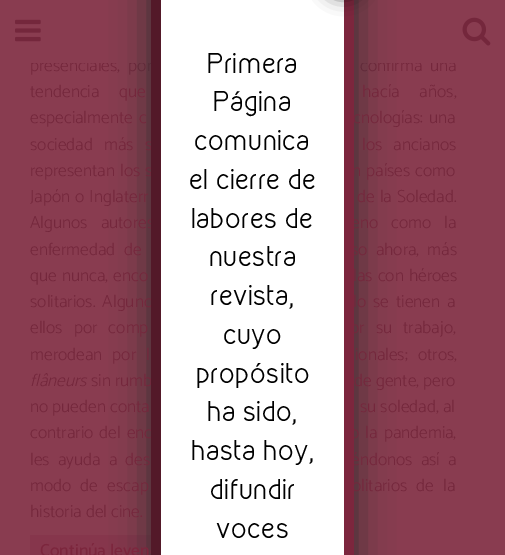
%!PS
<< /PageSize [505 555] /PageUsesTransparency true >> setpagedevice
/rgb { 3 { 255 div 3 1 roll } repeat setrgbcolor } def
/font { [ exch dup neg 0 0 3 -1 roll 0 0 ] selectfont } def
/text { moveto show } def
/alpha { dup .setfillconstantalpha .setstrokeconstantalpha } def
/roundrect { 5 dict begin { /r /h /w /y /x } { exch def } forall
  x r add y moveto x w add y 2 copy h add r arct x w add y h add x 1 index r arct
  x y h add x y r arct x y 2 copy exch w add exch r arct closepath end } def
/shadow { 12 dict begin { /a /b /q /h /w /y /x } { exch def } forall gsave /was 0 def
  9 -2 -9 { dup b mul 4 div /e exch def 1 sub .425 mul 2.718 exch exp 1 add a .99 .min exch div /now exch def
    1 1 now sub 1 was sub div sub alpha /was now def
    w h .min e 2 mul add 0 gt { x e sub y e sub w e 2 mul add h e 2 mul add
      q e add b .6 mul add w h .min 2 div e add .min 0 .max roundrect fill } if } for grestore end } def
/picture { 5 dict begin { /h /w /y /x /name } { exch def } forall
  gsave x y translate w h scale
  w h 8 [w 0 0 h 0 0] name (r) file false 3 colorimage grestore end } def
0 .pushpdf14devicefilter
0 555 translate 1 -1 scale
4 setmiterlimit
137 60 80 rgb
0 0 505 555 rectfill
(img_01.rgb) 15 19 26 23 picture
(img_02.rgb) 462 17 29 29 picture
134 54 76 rgb
30 535 121 20 rectfill
/Catamaran-Light 17.5 font
116 39 60 rgb
30 71 moveto 4 0 32 (presenciales, por) widthshow
360 71 moveto 4 0 32 (confirma una) widthshow
137 60 80 rgb
31 58 423 5 rectfill
48 48 48 rgb
151 -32 203 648 4 19 1 shadow
255 255 255 rgb
161 0 183 555 rectfill
/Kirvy-Regular 25 font
0 0 0 rgb
(voces) 216 538 text
(difundir) 210 499 text
(hasta hoy,) 191 460 text
(ha sido,) 207 421 text
(propósito) 196 383 text
(cuyo) 223 344 text
(revista,) 210 305 text
(nuestra) 209 266 text
(labores de) 191 228 text
(el cierre de) 189 189 text
(comunica) 194 150 text
(Página) 213 111 text
(Primera) 207 73 text
/Catamaran-Light 17.5 font
116 39 60 rgb
30 97 moveto 16 0 32 (tendencia que) widthshow
362 97 moveto 16 0 32 (hacía años,) widthshow
30 123 moveto 2 0 32 (especialmente c) widthshow
353 123 moveto 2 0 32 (cnologías: una) widthshow
30 150 moveto 7 0 32 (sociedad más s) widthshow
362 150 moveto 7 0 32 (los ancianos) widthshow
30 176 moveto 1 0 32 (representan los s) widthshow
352 176 moveto 1 0 32 (n países como) widthshow
30 202 moveto 1 0 32 (Japón o Inglaterr) widthshow
357 202 moveto 1 0 32 (de la Soledad.) widthshow
30 228 moveto 9 0 32 (Algunos autores) widthshow
351 228 moveto 9 0 32 (eno como la) widthshow
30 255 moveto 4 0 32 (enfermedad de) widthshow
351 255 moveto 4 0 32 (so ahora, más) widthshow
30 281 moveto 1 0 32 (que nunca, enco) widthshow
353 281 moveto 1 0 32 (las con héroes) widthshow
30 307 moveto 3 0 32 (solitarios. Alguno) widthshow
353 307 moveto 3 0 32 (lo se tienen a) widthshow
30 333 moveto 7 0 32 (ellos por comp) widthshow
350 333 moveto 7 0 32 (or su trabajo,) widthshow
30 360 moveto 6 0 32 (merodean por l) widthshow
355 360 moveto 6 0 32 (ionales; otros,) widthshow
/Catamaran-LightItalic 17.5 font
(flâneurs) 30 386 text
/Catamaran-Light 17.5 font
(sin rumb) 91 386 text
(de gente, pero) 354 386 text
(no pueden conta) 30 412 text
(su soledad, al) 360 412 text
30 438 moveto 2 0 32 (contrario del enc) widthshow
350 438 moveto 2 0 32 (o la pandemia,) widthshow
30 465 moveto 4 0 32 (les ayuda a des) widthshow
351 465 moveto 4 0 32 (éndonos así a) widthshow
30 491 moveto 5 0 32 (modo de escap) widthshow
352 491 moveto 5 0 32 (olitarios de la) widthshow
124 38 61 rgb
353 -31 moveto 1 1 rlineto 0 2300 rlineto -1 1 rlineto -10 -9 rlineto 1 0 rlineto 0 -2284 rlineto -1 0 rlineto closepath fill
2 2 2 rgb
326 -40 35 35 17.5 9.5 0.75 shadow
116 39 60 rgb
(historia del cine.) 30 517 text
/Catamaran-Medium 17.5 font
124 38 61 rgb
(Continúa leyend) 40 556 text
83 25 41 rgb
161 -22 moveto 0 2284 rlineto 1 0 rlineto -10 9 rlineto -1 -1 rlineto 0 -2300 rlineto 1 -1 rlineto 10 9 rlineto closepath fill
.poppdf14devicefilter showpage
